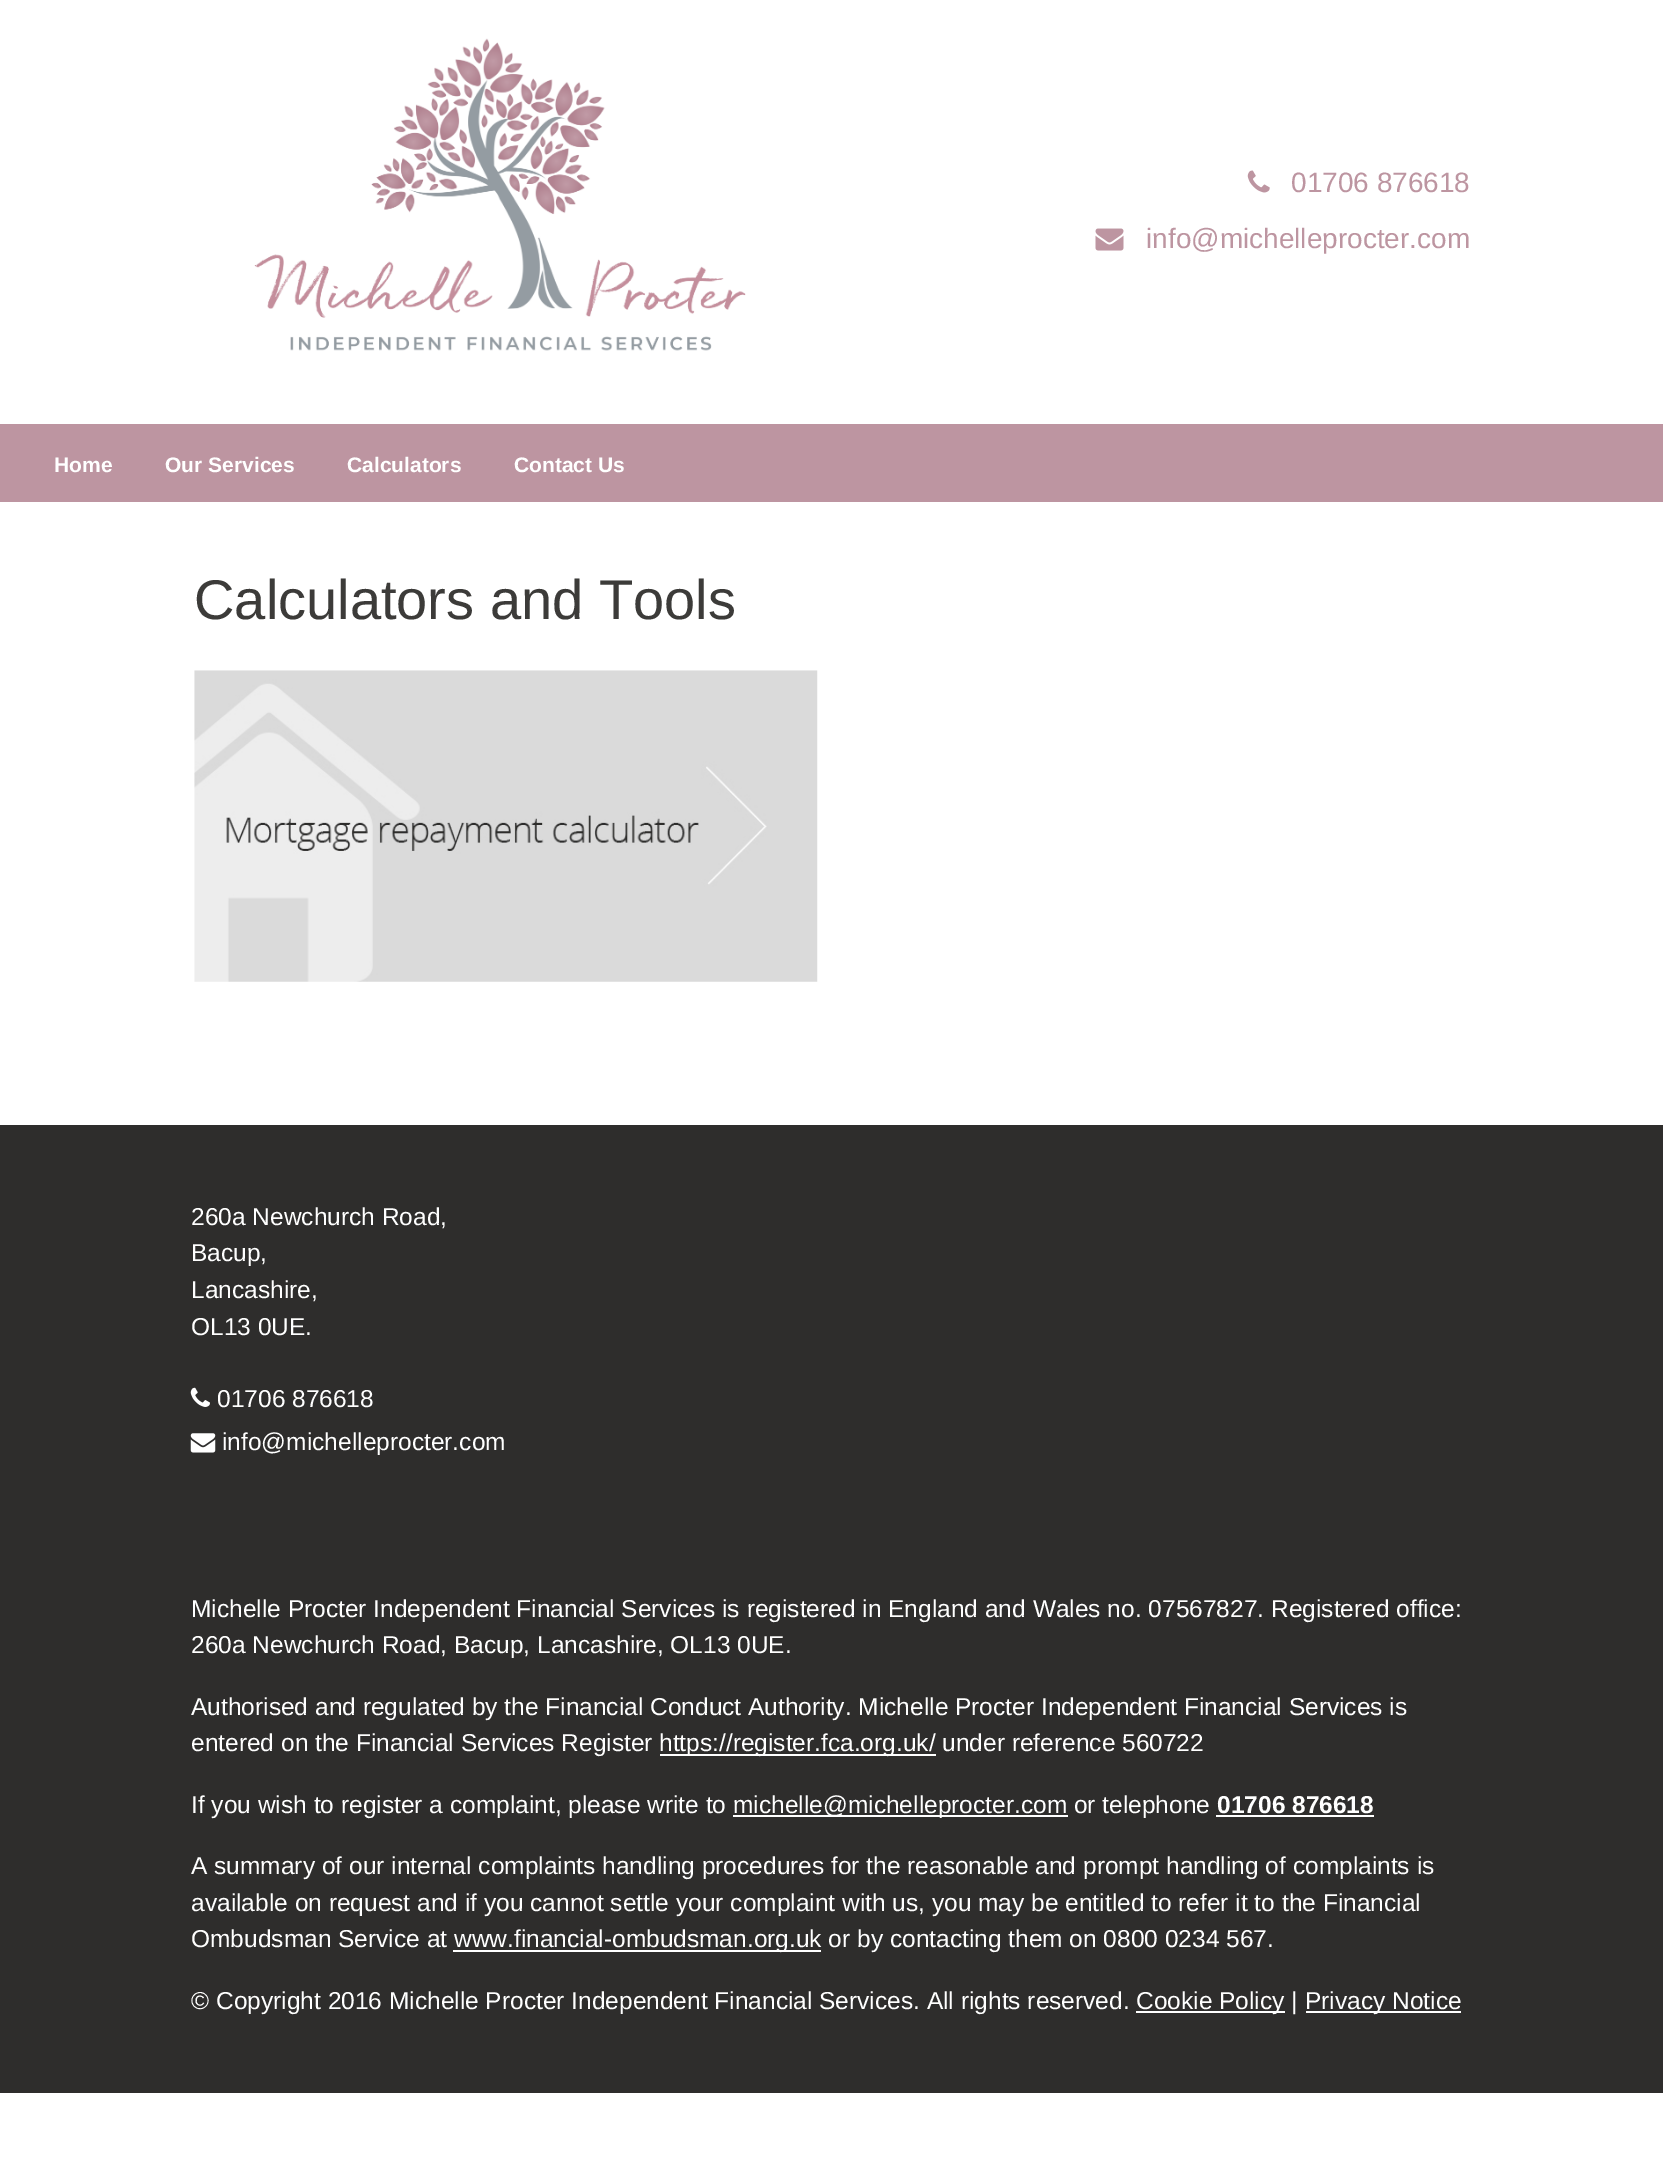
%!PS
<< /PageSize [1663 2183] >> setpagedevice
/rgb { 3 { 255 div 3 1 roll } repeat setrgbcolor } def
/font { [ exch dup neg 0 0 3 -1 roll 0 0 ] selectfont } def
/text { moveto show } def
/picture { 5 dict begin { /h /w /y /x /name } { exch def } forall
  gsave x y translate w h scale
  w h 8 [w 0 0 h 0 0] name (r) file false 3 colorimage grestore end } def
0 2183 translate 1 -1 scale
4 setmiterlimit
255 255 255 rgb
0 0 1663 2183 rectfill
(img_01.rgb) 254 38 492 313 picture
(img_02.rgb) 1247 170 23 23 picture
(img_03.rgb) 1095 228 29 23 picture
189 149 161 rgb
0 424 1663 78 rectfill
(img_04.rgb) 194 670 624 312 picture
46 45 44 rgb
0 1125 1663 968 rectfill
(img_05.rgb) 190 1387 20 20 picture
(img_06.rgb) 190 1433 26 20 picture
255 255 255 rgb
660 1754 276 2 rectfill
733 1815 335 2 rectfill
1216 1815 158 2 rectfill
453 1950 368 2 rectfill
1136 2011 149 2 rectfill
1306 2011 155 2 rectfill
/LiberationSans-Regular 28 font
189 149 161 rgb
(01706 876618) 1291 192 text
(info@michelleprocter.com) 1146 248 text
/LiberationSans-Bold 21 font
255 255 255 rgb
(Home) 54 472 text
(Our Services) 165 472 text
(Calculators) 347 472 text
(Contact Us) 514 472 text
/LiberationSans-Regular 56 font
60 59 57 rgb
(Calculators and Tools) 194 619 text
/LiberationSans-Regular 24.5 font
255 255 255 rgb
(260a Newchurch Road,) 191 1225 text
(Bacup,) 191 1261 text
(Lancashire,) 191 1298 text
(OL13 0UE.) 191 1335 text
(01706 876618) 217 1407 text
(info@michelleprocter.com) 222 1450 text
(Michelle Procter Independent Financial Services is registered in England and Wales no. 07567827. Registered office:) 191 1617 text
(260a Newchurch Road, Bacup, Lancashire, OL13 0UE.) 191 1653 text
(Authorised and regulated by the Financial Conduct Authority. Michelle Procter Independent Financial Services is) 191 1715 text
(entered on the Financial Services Register) 191 1751 text
(https://register.fca.org.uk/ under reference 560722) 659 1751 text
(If you wish to register a complaint, please write to) 191 1813 text
(michelle@michelleprocter.com or telephone) 733 1813 text
/LiberationSans-Bold 24.5 font
(01706 876618) 1217 1813 text
/LiberationSans-Regular 24.5 font
(A summary of our internal complaints handling procedures for the reasonable and prompt handling of complaints is) 191 1874 text
(available on request and if you cannot settle your complaint with us, you may be entitled to refer it to the Financial) 191 1911 text
(Ombudsman Service at) 191 1947 text
(www.financial-ombudsman.org.uk or by contacting them on 0800 0234 567.) 454 1947 text
(© Copyright 2016 Michelle Procter Independent Financial Services. All rights reserved.) 191 2009 text
(Cookie Policy |) 1136 2009 text
(Privacy Notice) 1305 2009 text
showpage
